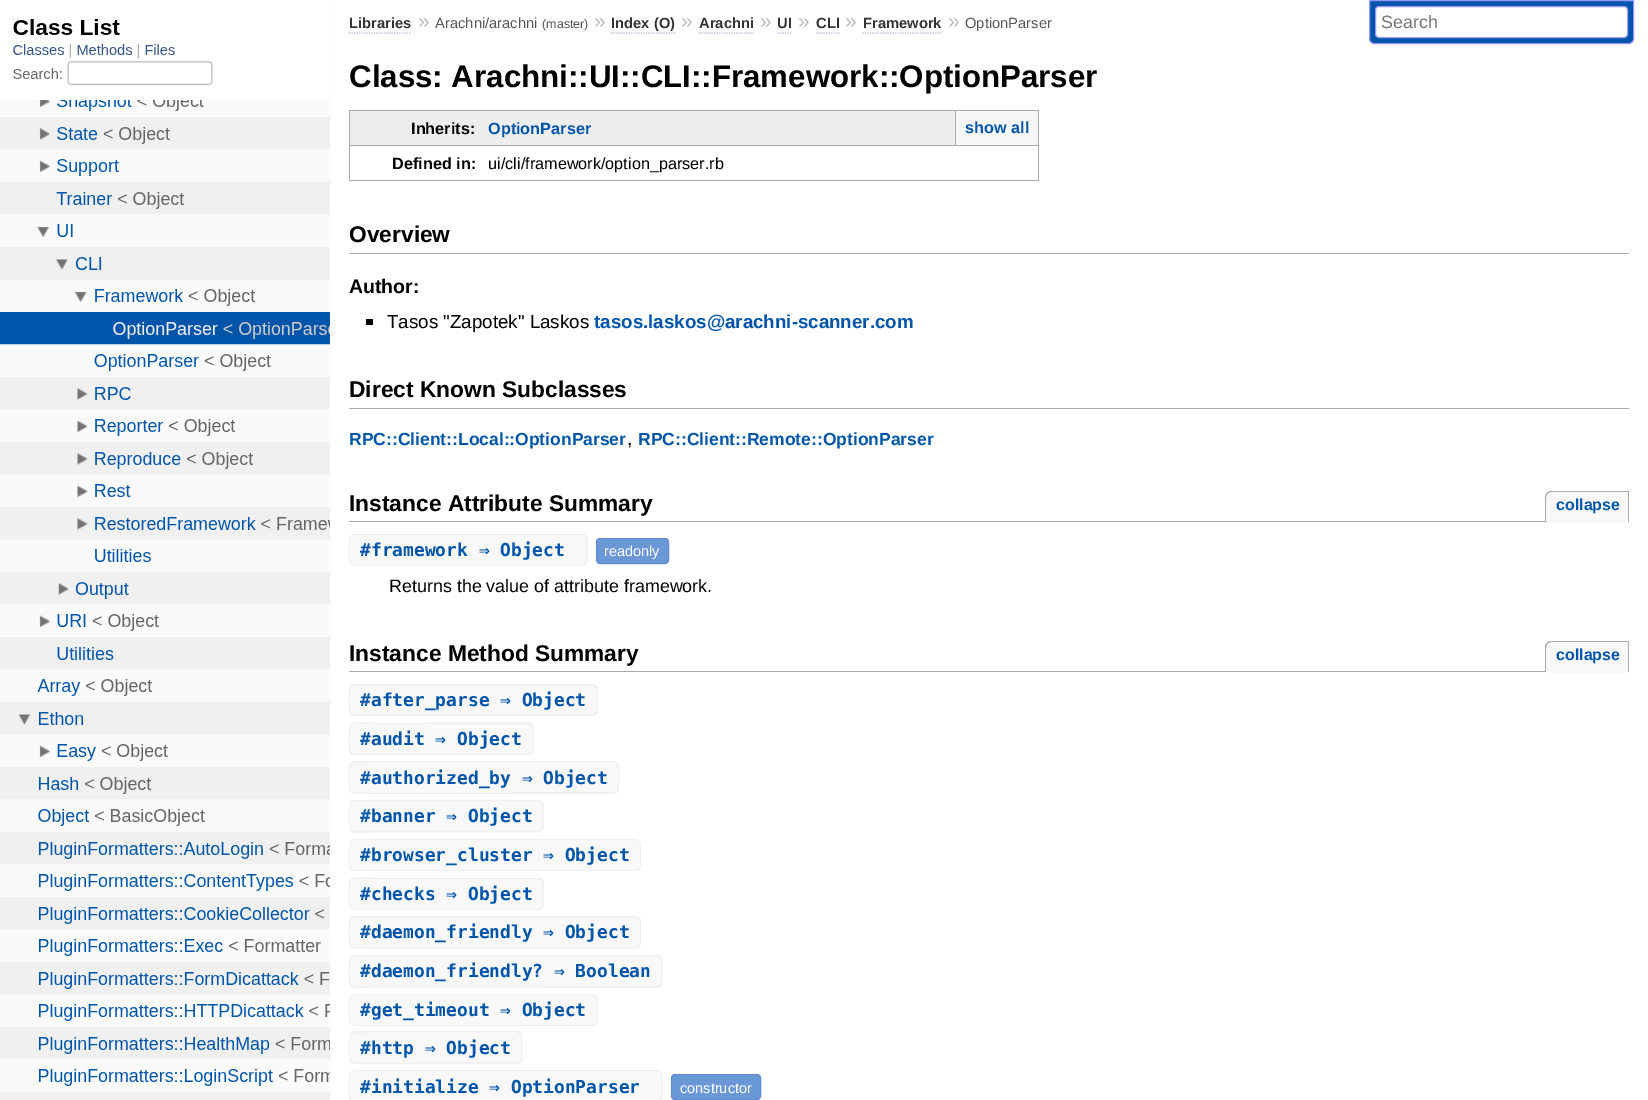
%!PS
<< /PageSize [1648 1100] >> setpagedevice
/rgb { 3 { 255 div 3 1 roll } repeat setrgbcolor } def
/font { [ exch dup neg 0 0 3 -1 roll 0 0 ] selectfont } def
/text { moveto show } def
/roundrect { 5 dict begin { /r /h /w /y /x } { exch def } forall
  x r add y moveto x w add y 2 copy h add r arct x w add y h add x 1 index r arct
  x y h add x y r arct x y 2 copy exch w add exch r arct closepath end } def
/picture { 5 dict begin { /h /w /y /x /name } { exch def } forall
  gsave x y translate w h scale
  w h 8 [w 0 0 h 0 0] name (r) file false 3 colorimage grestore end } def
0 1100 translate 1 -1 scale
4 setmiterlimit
255 255 255 rgb
0 0 1648 1100 rectfill
238 238 238 rgb
1.2 setlinewidth
[1.25 1.25] 0 setdash
330.5 0 moveto 0 1100 rlineto stroke
(img_01.rgb) 0 19 330 1081 picture
255 255 255 rgb
330 0 1 1099 rectfill
187 187 221 rgb
349 33 moveto 62 0 rlineto stroke
611 33 moveto 64 0 rlineto stroke
699 33 moveto 55 0 rlineto stroke
777.5 33 moveto 15 0 rlineto stroke
816 33 moveto 24 0 rlineto stroke
862.5 33 moveto 80 0 rlineto stroke
0 85 170 rgb
1369.5 0.5 moveto 264 0 rlineto 0 38.5 rlineto 0 2.5 -2 4.5 -4.5 4.5 rcurveto -255 0 rlineto -2.5 0 -4.5 -2 -4.5 -4.5 rcurveto closepath gsave fill grestore
153 153 255 rgb
1 setlinewidth
[] 0 setdash
stroke
255 255 255 rgb
1375.5 6.5 252 31 3.5 roundrect gsave fill grestore
153 153 255 rgb
stroke
238 238 238 rgb
350 111 605 34 rectfill
170 170 170 rgb
349 110 690 1 rectfill
349 110 1 35 rectfill
349 145 690 1 rectfill
1038 110 1 71 rectfill
246 246 246 rgb
956 111 82 34 rectfill
170 170 170 rgb
955 111 1 34 rectfill
349 180 139 1 rectfill
349 145 1 36 rectfill
488 180 551 1 rectfill
349 253 1280 1 rectfill
0 0 0 rgb
366 319 7 6 rectfill
170 170 170 rgb
349 408 1280 1 rectfill
349 521 1196 1 rectfill
248 248 248 rgb
1551 491 moveto 78 0 rlineto 0 32 rlineto -84 0 rlineto 0 -26 rlineto 0 -3.5 2.5 -6 6 -6 rcurveto closepath fill
170 170 170 rgb
1551 491 moveto 78 0 rlineto 0 31 rlineto -84 0 rlineto 0 -24 rlineto 0 -4 3 -7 6 -7 rcurveto closepath 1551 492 moveto 77 0 rlineto 0 30 rlineto -82 0 rlineto 0 -24 rlineto 0 -3 2 -6 5 -6 rcurveto closepath eofill
248 248 248 rgb
355 534 moveto 16 0 rlineto 0 32 rlineto -16 0 rlineto -3.5 0 -6 -2.5 -6 -6 rcurveto 0 -20 rlineto 0 -3.5 2.5 -6 6 -6 rcurveto closepath fill
240 240 240 rgb
355 534 moveto 16 0 rlineto 0 32 rlineto -16 0 rlineto -3.5 0 -6 -2.5 -6 -6 rcurveto 0 -20 rlineto 0 -3.5 2.5 -6 6 -6 rcurveto closepath 355 535 moveto 16 0 rlineto 0 30 rlineto -16 0 rlineto -3 0 -5 -2 -5 -5 rcurveto 0 -20 rlineto 0 -3 2 -5 5 -5 rcurveto closepath eofill
248 248 248 rgb
371 535 97 30 rectfill
240 240 240 rgb
371 534 97 1 rectfill
371 565 97 1 rectfill
248 248 248 rgb
468 534 moveto 114 0 rlineto 3.5 0 6 2.5 6 6 rcurveto 0 20 rlineto 0 3.5 -2.5 6 -6 6 rcurveto -114 0 rlineto closepath fill
240 240 240 rgb
468 534 moveto 113 0 rlineto 4 0 7 3 7 6 rcurveto 0 20 rlineto 0 3 -3 6 -7 6 rcurveto -113 0 rlineto closepath 468 535 moveto 113 0 rlineto 3 0 5 2 5 5 rcurveto 0 20 rlineto 0 3 -2 5 -5 5 rcurveto -113 0 rlineto closepath eofill
106 152 214 rgb
596.5 538.5 72 25 3.5 roundrect gsave fill grestore
102 137 214 rgb
stroke
170 170 170 rgb
349 671 1196 1 rectfill
248 248 248 rgb
1551 641 moveto 78 0 rlineto 0 32 rlineto -84 0 rlineto 0 -26 rlineto 0 -3.5 2.5 -6 6 -6 rcurveto closepath fill
170 170 170 rgb
1551 641 moveto 78 0 rlineto 0 31 rlineto -84 0 rlineto 0 -24 rlineto 0 -4 3 -7 6 -7 rcurveto closepath 1551 642 moveto 77 0 rlineto 0 30 rlineto -82 0 rlineto 0 -24 rlineto 0 -3 2 -6 5 -6 rcurveto closepath eofill
248 248 248 rgb
355 684 moveto 16 0 rlineto 0 32 rlineto -16 0 rlineto -3.5 0 -6 -2.5 -6 -6 rcurveto 0 -20 rlineto 0 -3.5 2.5 -6 6 -6 rcurveto closepath fill
240 240 240 rgb
355 684 moveto 16 0 rlineto 0 32 rlineto -16 0 rlineto -3.5 0 -6 -2.5 -6 -6 rcurveto 0 -20 rlineto 0 -3.5 2.5 -6 6 -6 rcurveto closepath 355 685 moveto 16 0 rlineto 0 30 rlineto -16 0 rlineto -3 0 -5 -2 -5 -5 rcurveto 0 -20 rlineto 0 -3 2 -5 5 -5 rcurveto closepath eofill
248 248 248 rgb
371 685 119 30 rectfill
240 240 240 rgb
371 684 119 1 rectfill
371 715 119 1 rectfill
248 248 248 rgb
490 684 moveto 102 0 rlineto 3.5 0 6 2.5 6 6 rcurveto 0 20 rlineto 0 3.5 -2.5 6 -6 6 rcurveto -102 0 rlineto closepath fill
240 240 240 rgb
490 684 moveto 101 0 rlineto 4 0 7 3 7 6 rcurveto 0 20 rlineto 0 3 -3 6 -7 6 rcurveto -101 0 rlineto closepath 490 685 moveto 101 0 rlineto 3 0 5 2 5 5 rcurveto 0 20 rlineto 0 3 -2 5 -5 5 rcurveto -101 0 rlineto closepath eofill
248 248 248 rgb
355 723 moveto 16 0 rlineto 0 32 rlineto -16 0 rlineto -3.5 0 -6 -2.5 -6 -6 rcurveto 0 -20 rlineto 0 -3.5 2.5 -6 6 -6 rcurveto closepath fill
240 240 240 rgb
355 722.5 moveto 16 0 rlineto 0 32.5 rlineto -16 0 rlineto -3.5 0 -6 -3 -6 -6 rcurveto 0 -20 rlineto 0 -3.5 2.5 -6.5 6 -6.5 rcurveto closepath 355 724 moveto 16 0 rlineto 0 30 rlineto -16 0 rlineto -3 0 -5 -2.5 -5 -5 rcurveto 0 -20 rlineto 0 -3 2 -5 5 -5 rcurveto closepath eofill
248 248 248 rgb
371 724 54 30 rectfill
240 240 240 rgb
371 723 54 1 rectfill
371 754 54 1 rectfill
248 248 248 rgb
425 723 moveto 103 0 rlineto 3.5 0 6 2.5 6 6 rcurveto 0 20 rlineto 0 3.5 -2.5 6 -6 6 rcurveto -103 0 rlineto closepath fill
240 240 240 rgb
425 722 moveto 103 0 rlineto 3 0 6 3 6 7 rcurveto 0 20 rlineto 0 3 -3 6 -6 6 rcurveto -103 0 rlineto closepath 425 724 moveto 103 0 rlineto 2 0 4 2 4 5 rcurveto 0 20 rlineto 0 3 -2 5 -4 5 rcurveto -103 0 rlineto closepath eofill
248 248 248 rgb
355 761 moveto 16 0 rlineto 0 33 rlineto -16 0 rlineto -3.5 0 -6 -2.5 -6 -6 rcurveto 0 -21 rlineto 0 -3.5 2.5 -6 6 -6 rcurveto closepath fill
240 240 240 rgb
355 761 moveto 16 0 rlineto 0 33 rlineto -16 0 rlineto -3.5 0 -6 -3 -6 -6.5 rcurveto 0 -20 rlineto 0 -3.5 2.5 -6.5 6 -6.5 rcurveto closepath 355 762.5 moveto 16 0 rlineto 0 30 rlineto -16 0 rlineto -3 0 -5 -2 -5 -5 rcurveto 0 -20 rlineto 0 -3 2 -5 5 -5 rcurveto closepath eofill
248 248 248 rgb
371 762 140 31 rectfill
240 240 240 rgb
371 761 140 1 rectfill
371 793 140 1 rectfill
248 248 248 rgb
511 761 moveto 102 0 rlineto 3.5 0 6 2.5 6 6 rcurveto 0 21 rlineto 0 3.5 -2.5 6 -6 6 rcurveto -102 0 rlineto closepath fill
240 240 240 rgb
511 761 moveto 101 0 rlineto 4 0 7 3 7 7 rcurveto 0 20 rlineto 0 3 -3 6 -7 6 rcurveto -101 0 rlineto closepath 511 762 moveto 101 0 rlineto 3 0 6 3 6 6 rcurveto 0 20 rlineto 0 2 -3 4 -6 4 rcurveto -101 0 rlineto closepath eofill
248 248 248 rgb
355 800 moveto 16 0 rlineto 0 33 rlineto -16 0 rlineto -3.5 0 -6 -2.5 -6 -6 rcurveto 0 -21 rlineto 0 -3.5 2.5 -6 6 -6 rcurveto closepath fill
240 240 240 rgb
355 800 moveto 16 0 rlineto 0 32.5 rlineto -16 0 rlineto -3.5 0 -6 -3 -6 -6.5 rcurveto 0 -20 rlineto 0 -3 2.5 -6 6 -6 rcurveto closepath 355 801 moveto 16 0 rlineto 0 30 rlineto -16 0 rlineto -3 0 -5 -2 -5 -5 rcurveto 0 -20 rlineto 0 -2.5 2 -5 5 -5 rcurveto closepath eofill
248 248 248 rgb
371 801 65 32 rectfill
240 240 240 rgb
371 800 65 1 rectfill
371 831 65 1 rectfill
248 248 248 rgb
436 800 moveto 102 0 rlineto 3.5 0 6 2.5 6 6 rcurveto 0 21 rlineto 0 3.5 -2.5 6 -6 6 rcurveto -102 0 rlineto closepath fill
240 240 240 rgb
436 800 moveto 102 0 rlineto 3 0 6 3 6 6 rcurveto 0 20 rlineto 0 4 -3 6 -6 6 rcurveto -102 0 rlineto closepath 436 801 moveto 102 0 rlineto 2 0 4 2 4 5 rcurveto 0 20 rlineto 0 3 -2 5 -4 5 rcurveto -102 0 rlineto closepath eofill
248 248 248 rgb
355 839 moveto 16 0 rlineto 0 32 rlineto -16 0 rlineto -3.5 0 -6 -2.5 -6 -6 rcurveto 0 -20 rlineto 0 -3.5 2.5 -6 6 -6 rcurveto closepath fill
240 240 240 rgb
355 839 moveto 16 0 rlineto 0 32 rlineto -16 0 rlineto -3.5 0 -6 -2.5 -6 -6 rcurveto 0 -20 rlineto 0 -3.5 2.5 -6 6 -6 rcurveto closepath 355 840 moveto 16 0 rlineto 0 30 rlineto -16 0 rlineto -3 0 -5 -2 -5 -5 rcurveto 0 -20 rlineto 0 -3 2 -5 5 -5 rcurveto closepath eofill
248 248 248 rgb
371 840 162 30 rectfill
240 240 240 rgb
371 839 162 1 rectfill
371 870 162 1 rectfill
248 248 248 rgb
533 839 moveto 102 0 rlineto 3.5 0 6 2.5 6 6 rcurveto 0 20 rlineto 0 3.5 -2.5 6 -6 6 rcurveto -102 0 rlineto closepath fill
240 240 240 rgb
532 839 moveto 103 0 rlineto 3 0 6 3 6 6 rcurveto 0 20 rlineto 0 3 -3 6 -6 6 rcurveto -103 0 rlineto closepath 532 840 moveto 103 0 rlineto 3 0 5 2 5 5 rcurveto 0 20 rlineto 0 3 -2 5 -5 5 rcurveto -103 0 rlineto closepath eofill
248 248 248 rgb
355 878 moveto 16 0 rlineto 0 32 rlineto -16 0 rlineto -3.5 0 -6 -2.5 -6 -6 rcurveto 0 -20 rlineto 0 -3.5 2.5 -6 6 -6 rcurveto closepath fill
240 240 240 rgb
355 877.5 moveto 16 0 rlineto 0 32.5 rlineto -16 0 rlineto -3.5 0 -6 -3 -6 -6 rcurveto 0 -20 rlineto 0 -3.5 2.5 -6.5 6 -6.5 rcurveto closepath 355 879 moveto 16 0 rlineto 0 30 rlineto -16 0 rlineto -3 0 -5 -2.5 -5 -5 rcurveto 0 -20 rlineto 0 -3 2 -5 5 -5 rcurveto closepath eofill
248 248 248 rgb
371 879 65 30 rectfill
240 240 240 rgb
371 878 65 1 rectfill
371 909 65 1 rectfill
248 248 248 rgb
436 878 moveto 102 0 rlineto 3.5 0 6 2.5 6 6 rcurveto 0 20 rlineto 0 3.5 -2.5 6 -6 6 rcurveto -102 0 rlineto closepath fill
240 240 240 rgb
436 878 moveto 102 0 rlineto 3 0 6 2 6 6 rcurveto 0 20 rlineto 0 3 -3 6 -6 6 rcurveto -102 0 rlineto closepath 436 879 moveto 102 0 rlineto 2 0 4 2 4 5 rcurveto 0 20 rlineto 0 3 -2 5 -4 5 rcurveto -102 0 rlineto closepath eofill
248 248 248 rgb
355 916 moveto 16 0 rlineto 0 33 rlineto -16 0 rlineto -3.5 0 -6 -2.5 -6 -6 rcurveto 0 -21 rlineto 0 -3.5 2.5 -6 6 -6 rcurveto closepath fill
240 240 240 rgb
355 916 moveto 16 0 rlineto 0 33 rlineto -16 0 rlineto -3.5 0 -6 -3 -6 -6.5 rcurveto 0 -20 rlineto 0 -3.5 2.5 -6.5 6 -6.5 rcurveto closepath 355 917.5 moveto 16 0 rlineto 0 30 rlineto -16 0 rlineto -3 0 -5 -2 -5 -5 rcurveto 0 -20 rlineto 0 -3 2 -5 5 -5 rcurveto closepath eofill
248 248 248 rgb
371 917 162 31 rectfill
240 240 240 rgb
371 916 162 1 rectfill
371 948 162 1 rectfill
248 248 248 rgb
533 916 moveto 102 0 rlineto 3.5 0 6 2.5 6 6 rcurveto 0 21 rlineto 0 3.5 -2.5 6 -6 6 rcurveto -102 0 rlineto closepath fill
240 240 240 rgb
532 916 moveto 103 0 rlineto 3 0 6 3 6 6 rcurveto 0 20 rlineto 0 4 -3 7 -6 7 rcurveto -103 0 rlineto closepath 532 918 moveto 103 0 rlineto 3 0 5 2 5 4 rcurveto 0 20 rlineto 0 3 -2 6 -5 6 rcurveto -103 0 rlineto closepath eofill
248 248 248 rgb
355 955 moveto 16 0 rlineto 0 33 rlineto -16 0 rlineto -3.5 0 -6 -2.5 -6 -6 rcurveto 0 -21 rlineto 0 -3.5 2.5 -6 6 -6 rcurveto closepath fill
240 240 240 rgb
355 955 moveto 16 0 rlineto 0 32.5 rlineto -16 0 rlineto -3.5 0 -6 -3 -6 -6.5 rcurveto 0 -20 rlineto 0 -3 2.5 -6 6 -6 rcurveto closepath 355 956 moveto 16 0 rlineto 0 30 rlineto -16 0 rlineto -3 0 -5 -2 -5 -5 rcurveto 0 -20 rlineto 0 -2.5 2 -5 5 -5 rcurveto closepath eofill
248 248 248 rgb
371 956 173 32 rectfill
240 240 240 rgb
371 955 173 1 rectfill
371 986 173 1 rectfill
248 248 248 rgb
544 955 moveto 113 0 rlineto 3.5 0 6 2.5 6 6 rcurveto 0 21 rlineto 0 3.5 -2.5 6 -6 6 rcurveto -113 0 rlineto closepath fill
240 240 240 rgb
544 955 moveto 112 0 rlineto 4 0 6 3 6 6 rcurveto 0 20 rlineto 0 4 -2 7 -6 7 rcurveto -112 0 rlineto closepath 544 956 moveto 112 0 rlineto 3 0 5 2 5 5 rcurveto 0 20 rlineto 0 3 -2 5 -5 5 rcurveto -112 0 rlineto closepath eofill
248 248 248 rgb
355 994 moveto 16 0 rlineto 0 32 rlineto -16 0 rlineto -3.5 0 -6 -2.5 -6 -6 rcurveto 0 -20 rlineto 0 -3.5 2.5 -6 6 -6 rcurveto closepath fill
240 240 240 rgb
355 994 moveto 16 0 rlineto 0 32 rlineto -16 0 rlineto -3.5 0 -6 -2.5 -6 -6 rcurveto 0 -20 rlineto 0 -3.5 2.5 -6 6 -6 rcurveto closepath 355 995 moveto 16 0 rlineto 0 30 rlineto -16 0 rlineto -3 0 -5 -2 -5 -5 rcurveto 0 -20 rlineto 0 -3 2 -5 5 -5 rcurveto closepath eofill
248 248 248 rgb
371 995 119 30 rectfill
240 240 240 rgb
371 994 119 1 rectfill
371 1025 119 1 rectfill
248 248 248 rgb
490 994 moveto 102 0 rlineto 3.5 0 6 2.5 6 6 rcurveto 0 20 rlineto 0 3.5 -2.5 6 -6 6 rcurveto -102 0 rlineto closepath fill
240 240 240 rgb
490 994 moveto 101 0 rlineto 4 0 7 3 7 6 rcurveto 0 20 rlineto 0 3 -3 6 -7 6 rcurveto -101 0 rlineto closepath 490 995 moveto 101 0 rlineto 3 0 5 2 5 5 rcurveto 0 20 rlineto 0 3 -2 5 -5 5 rcurveto -101 0 rlineto closepath eofill
248 248 248 rgb
355 1031 moveto 16 0 rlineto 0 33 rlineto -16 0 rlineto -3.5 0 -6 -2.5 -6 -6 rcurveto 0 -21 rlineto 0 -3.5 2.5 -6 6 -6 rcurveto closepath fill
240 240 240 rgb
355 1031 moveto 16 0 rlineto 0 33 rlineto -16 0 rlineto -3.5 0 -6 -3 -6 -6.5 rcurveto 0 -20 rlineto 0 -3.5 2.5 -6.5 6 -6.5 rcurveto closepath 355 1032.5 moveto 16 0 rlineto 0 30 rlineto -16 0 rlineto -3 0 -5 -2 -5 -5 rcurveto 0 -20 rlineto 0 -3 2 -5 5 -5 rcurveto closepath eofill
248 248 248 rgb
371 1032 43 31 rectfill
240 240 240 rgb
371 1031 43 1 rectfill
371 1063 43 1 rectfill
248 248 248 rgb
414 1031 moveto 103 0 rlineto 3.5 0 6 2.5 6 6 rcurveto 0 21 rlineto 0 3.5 -2.5 6 -6 6 rcurveto -103 0 rlineto closepath fill
240 240 240 rgb
414 1031 moveto 102 0 rlineto 4 0 6 3 6 7 rcurveto 0 20 rlineto 0 3 -2 6 -6 6 rcurveto -102 0 rlineto closepath 414 1032 moveto 102 0 rlineto 3 0 5 3 5 6 rcurveto 0 20 rlineto 0 2 -2 4 -5 4 rcurveto -102 0 rlineto closepath eofill
248 248 248 rgb
355 1070 moveto 16 0 rlineto 0 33 rlineto -16 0 rlineto -3.5 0 -6 -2.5 -6 -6 rcurveto 0 -21 rlineto 0 -3.5 2.5 -6 6 -6 rcurveto closepath fill
240 240 240 rgb
355 1070 moveto 16 0 rlineto 0 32.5 rlineto -16 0 rlineto -3.5 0 -6 -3 -6 -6.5 rcurveto 0 -20 rlineto 0 -3 2.5 -6 6 -6 rcurveto closepath 355 1071 moveto 16 0 rlineto 0 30 rlineto -16 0 rlineto -3 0 -5 -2 -5 -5 rcurveto 0 -20 rlineto 0 -2.5 2 -5 5 -5 rcurveto closepath eofill
248 248 248 rgb
371 1071 108 29 rectfill
240 240 240 rgb
371 1070 108 1 rectfill
248 248 248 rgb
479 1070 moveto 178 0 rlineto 3.5 0 6 2.5 6 6 rcurveto 0 21 rlineto 0 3.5 -2.5 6 -6 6 rcurveto -178 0 rlineto closepath fill
240 240 240 rgb
479 1070 moveto 177 0 rlineto 4 0 6 3 6 6 rcurveto 0 20 rlineto 0 4 -2 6 -6 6 rcurveto -177 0 rlineto closepath 479 1071 moveto 177 0 rlineto 3 0 5 2 5 5 rcurveto 0 20 rlineto 0 3 -2 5 -5 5 rcurveto -177 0 rlineto closepath eofill
106 152 214 rgb
671.5 1074.5 89 25 3.5 roundrect gsave fill grestore
102 137 214 rgb
stroke
/LiberationSans-Bold 14.75 font
51 51 51 rgb
(Libraries) 349 28 text
/LiberationSans-Regular 21 font
187 187 187 rgb
(») 418 28 text
/LiberationSans-Regular 14.75 font
85 85 85 rgb
(Arachni/arachni) 435 28 text
/LiberationSans-Regular 12.5 font
(\(master\)) 542 28 text
/LiberationSans-Regular 21 font
187 187 187 rgb
(») 594 28 text
/LiberationSans-Bold 14.75 font
51 51 51 rgb
(Index \(O\)) 611 28 text
/LiberationSans-Regular 21 font
187 187 187 rgb
(») 681 28 text
/LiberationSans-Bold 14.75 font
51 51 51 rgb
(Arachni) 699 28 text
/LiberationSans-Regular 21 font
187 187 187 rgb
(») 760 28 text
/LiberationSans-Bold 14.75 font
51 51 51 rgb
(UI) 777 28 text
/LiberationSans-Regular 21 font
187 187 187 rgb
(») 798 28 text
/LiberationSans-Bold 14.75 font
51 51 51 rgb
(CLI) 816 28 text
/LiberationSans-Regular 21 font
187 187 187 rgb
(») 845 28 text
/LiberationSans-Bold 14.75 font
51 51 51 rgb
(Framework) 863 28 text
/LiberationSans-Regular 21 font
187 187 187 rgb
(») 948 28 text
/LiberationSans-Regular 14.75 font
85 85 85 rgb
(OptionParser) 965 28 text
/LiberationSans-Regular 17.9 font
117 117 117 rgb
(Search) 1381 28 text
/LiberationSans-Bold 31.25 font
0 0 0 rgb
(Class: Arachni::UI::CLI::Framework::OptionParser) 349 87 text
/LiberationSans-Bold 16.25 font
(Inherits:) 411 134 text
0 85 170 rgb
(OptionParser) 488 134 text
(show all) 965 133 text
0 0 0 rgb
(Defined in:) 392 169 text
/LiberationSans-Regular 16.25 font
(ui/cli/framework/option_parser.rb) 488 169 text
/LiberationSans-Bold 22.75 font
(Overview) 349 242 text
/LiberationSans-Bold 19.5 font
(Author:) 349 293 text
/LiberationSans-Regular 18.75 font
(Tasos "Zapotek" Laskos) 387 328 text
/LiberationSans-Bold 18.75 font
0 85 170 rgb
(tasos.laskos@arachni-scanner.com) 594 328 text
/LiberationSans-Bold 22.75 font
0 0 0 rgb
(Direct Known Subclasses) 349 397 text
/LiberationSans-Bold 17.5 font
0 85 170 rgb
(RPC::Client::Local::OptionParser) 349 445 text
/LiberationSans-Regular 20 font
0 0 0 rgb
(,) 627 445 text
/LiberationSans-Bold 17.5 font
0 85 170 rgb
(RPC::Client::Remote::OptionParser) 638 445 text
/LiberationSans-Bold 22.75 font
0 0 0 rgb
(Instance Attribute Summary) 349 511 text
/LiberationSans-Bold 16 font
0 85 170 rgb
(collapse) 1556 510 text
/DejaVuSansMono-Bold 17.9 font
(#framework ⇒ Object) 360 556 text
/LiberationSans-Regular 14.5 font
255 255 255 rgb
(readonly) 604 556 text
/LiberationSans-Regular 17.9 font
0 0 0 rgb
(Returns the value of attribute framework.) 389 592 text
/LiberationSans-Bold 22.75 font
(Instance Method Summary) 349 661 text
/LiberationSans-Bold 16 font
0 85 170 rgb
(collapse) 1556 660 text
/DejaVuSansMono-Bold 17.9 font
(#after_parse ⇒ Object) 360 706 text
(#audit ⇒ Object) 360 745 text
(#authorized_by ⇒ Object) 360 784 text
(#banner ⇒ Object) 360 822 text
(#browser_cluster ⇒ Object) 360 861 text
(#checks ⇒ Object) 360 900 text
(#daemon_friendly ⇒ Object) 360 938 text
(#daemon_friendly? ⇒ Boolean) 360 977 text
(#get_timeout ⇒ Object) 360 1016 text
(#http ⇒ Object) 360 1054 text
(#initialize ⇒ OptionParser) 360 1093 text
/LiberationSans-Regular 14.5 font
255 255 255 rgb
(constructor) 680 1093 text
showpage
